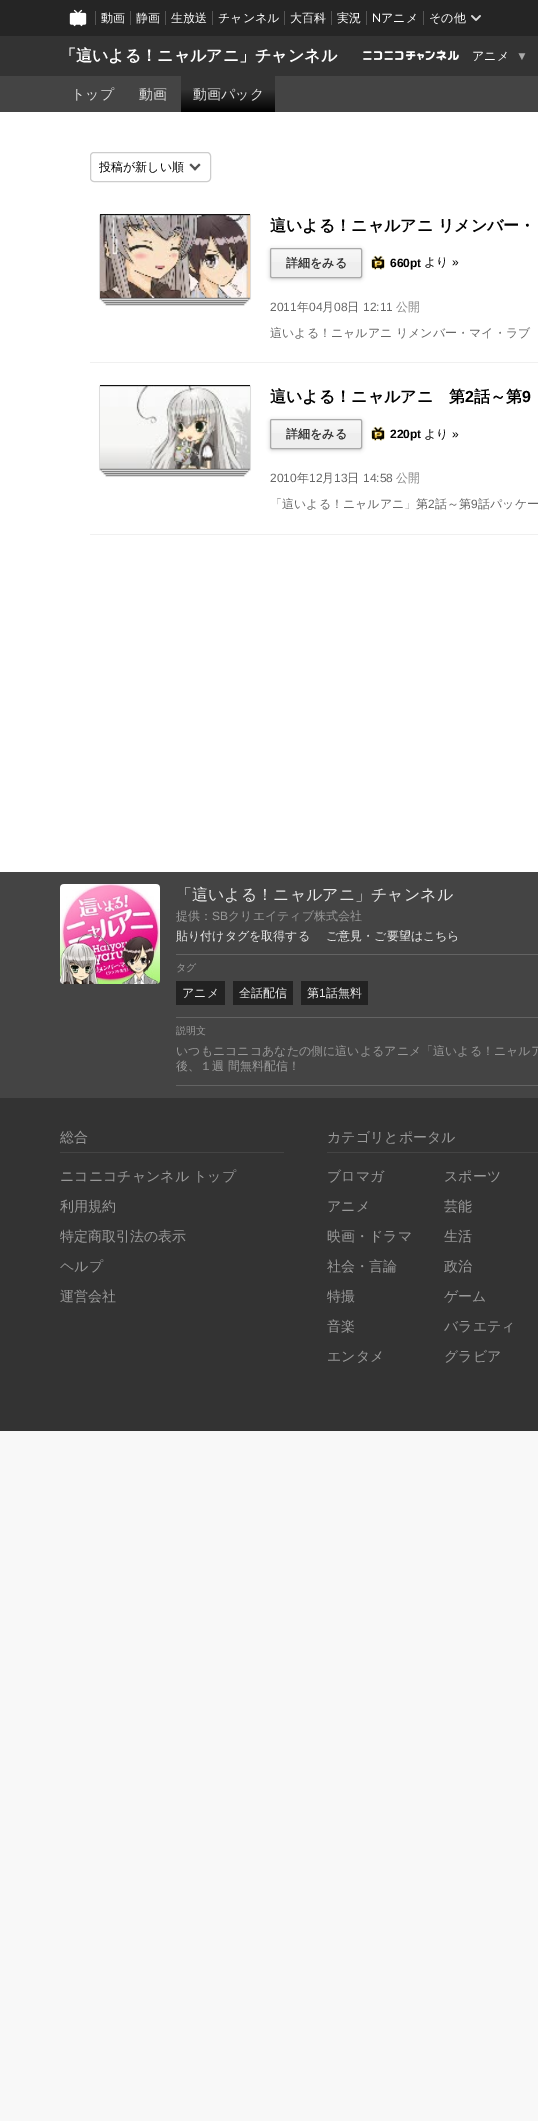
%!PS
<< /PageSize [538 2121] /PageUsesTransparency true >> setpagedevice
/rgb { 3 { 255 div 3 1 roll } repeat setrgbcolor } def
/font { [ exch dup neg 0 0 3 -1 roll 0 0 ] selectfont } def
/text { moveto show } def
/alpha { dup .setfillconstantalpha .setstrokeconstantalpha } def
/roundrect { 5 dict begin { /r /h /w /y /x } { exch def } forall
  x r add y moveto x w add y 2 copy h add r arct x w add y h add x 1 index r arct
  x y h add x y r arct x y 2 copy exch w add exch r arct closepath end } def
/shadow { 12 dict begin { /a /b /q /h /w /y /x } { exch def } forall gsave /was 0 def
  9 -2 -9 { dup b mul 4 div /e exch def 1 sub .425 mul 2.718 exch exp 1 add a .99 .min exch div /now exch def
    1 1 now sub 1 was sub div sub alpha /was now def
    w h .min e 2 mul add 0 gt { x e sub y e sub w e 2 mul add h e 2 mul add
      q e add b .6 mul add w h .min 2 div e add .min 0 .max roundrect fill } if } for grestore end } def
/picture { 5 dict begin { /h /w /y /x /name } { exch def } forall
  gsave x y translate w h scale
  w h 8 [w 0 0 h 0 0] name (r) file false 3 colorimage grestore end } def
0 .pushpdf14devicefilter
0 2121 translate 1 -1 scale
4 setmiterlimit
248 248 248 rgb
0 0 538 2121 rectfill
37 37 37 rgb
0 0 538 36 rectfill
(img_01.rgb) 69 9 18 18 picture
85 85 85 rgb
95 11 1 14 rectfill
130 11 1 14 rectfill
165 11 1 14 rectfill
212 11 1 14 rectfill
284 11 1 14 rectfill
331 11 1 14 rectfill
366 11 1 14 rectfill
423 11 1 14 rectfill
(img_02.rgb) 471 15 10 6 picture
51 51 51 rgb
0 36 538 40 rectfill
(img_03.rgb) 363 50 96 11 picture
68 68 68 rgb
0 76 538 36 rectfill
51 51 51 rgb
181 76 94 36 rectfill
(img_04.rgb) 181 90 94 22 picture
255 255 255 rgb
0 112 538 760 rectfill
205 205 205 rgb
90.5 152.5 120 29 3.5 roundrect stroke
82 82 82 rgb
199 163.5 moveto 1.5 1.5 rlineto -5.5 5.5 rlineto -1.5 -1.5 rlineto closepath fill
191 163.5 moveto 5.5 5.5 rlineto -1.5 1.5 rlineto -5.5 -5.5 rlineto closepath fill
240 240 240 rgb
90 362 448 1 rectfill
0 0 0 rgb
106 221 138 84 0 0.5 0.5 shadow
221 221 221 rgb
106 302 138 2 rectfill
0 0 0 rgb
104 219 142 84 0 0.5 0.5 shadow
238 238 238 rgb
104 300 142 2 rectfill
0 0 0 rgb
102 217 146 84 0 0.5 0.5 shadow
255 255 255 rgb
102 298 146 2 rectfill
0 0 0 rgb
100 215 150 84 0 0.5 0.5 shadow
(img_05.rgb) 100 214 150 84 picture
270 249 92 30 2 2 0.2 shadow
238 238 238 rgb
270 248 92 30 2 roundrect fill
(img_06.rgb) 270 249 92 13 picture
170 170 170 rgb
270.5 248.5 91 29 1.5 roundrect stroke
(img_07.rgb) 371 255 14 15 picture
240 240 240 rgb
90 534 448 1 rectfill
0 0 0 rgb
106 392 138 84 0 0.5 0.5 shadow
221 221 221 rgb
106 473 138 2 rectfill
0 0 0 rgb
104 390 142 84 0 0.5 0.5 shadow
238 238 238 rgb
104 471 142 2 rectfill
0 0 0 rgb
102 388 146 84 0 0.5 0.5 shadow
255 255 255 rgb
102 469 146 2 rectfill
0 0 0 rgb
100 386 150 84 0 0.5 0.5 shadow
(img_08.rgb) 100 385 150 84 picture
270 420 92 30 2 2 0.2 shadow
238 238 238 rgb
270 419 92 30 2 roundrect fill
(img_06.rgb) 270 420 92 13 picture
170 170 170 rgb
270.5 419.5 91 29 1.5 roundrect stroke
(img_07.rgb) 371 426 14 15 picture
51 51 51 rgb
0 1098 538 333 rectfill
68 68 68 rgb
0 872 538 226 rectfill
(img_09.rgb) 60 884 100 100 picture
99 99 99 rgb
176 954 362 1 rectfill
34 34 34 rgb
176 981 49 24 rectfill
233 981 60 24 rectfill
301 981 67 24 rectfill
99 99 99 rgb
176 1017 362 1 rectfill
176 1085 362 1 rectfill
68 68 68 rgb
60 1152 224 1 rectfill
327 1152 211 1 rectfill
/WenQuanYiZenHei-Medium 12 font
255 255 255 rgb
(動画) 101 22 text
(静画) 136 22 text
(生放送) 171 22 text
(チャンネル) 218 22 text
(大百科) 290 22 text
(実況) 337 22 text
/Lato-Regular 12 font
(N) 372 22 text
/WenQuanYiZenHei-Medium 12 font
(アニメ) 381 22 text
(その他) 429 22 text
/WenQuanYiZenHei-Bold 16 font
(「這いよる！ニャルアニ」チャンネル) 60 61 text
/WenQuanYiZenHei-Medium 12 font
(アニメ) 472 60 text
/LiberationSans-Regular 12 font
170 170 170 rgb
(▼) 516 60 text
/WenQuanYiZenHei-Medium 14 font
224 224 224 rgb
(トップ) 71 99 text
(動画) 139 99 text
(動画パック) 193 99 text
/WenQuanYiZenHei-Medium 12 font
0 0 0 rgb
(投稿が新しい順) 99 171 text
/WenQuanYiZenHei-Bold 16 font
(這いよる！ニャルアニ リメンバー・) 270 231 text
/WenQuanYiZenHei-Bold 12 font
51 51 51 rgb
(詳細をみる) 286 267 text
/LiberationSans-Bold 12 font
0 0 0 rgb
(660pt) 390 267 text
/WenQuanYiZenHei-Medium 12 font
(より) 424 266 text
/LiberationSans-Regular 12 font
(») 452 266 text
102 102 102 rgb
(2011) 270 311 text
/WenQuanYiZenHei-Medium 12 font
(年) 297 311 text
/LiberationSans-Regular 12 font
(04) 309 311 text
/WenQuanYiZenHei-Medium 12 font
(月) 322 311 text
/LiberationSans-Regular 12 font
(08) 334 311 text
/WenQuanYiZenHei-Medium 12 font
(日) 347 311 text
/LiberationSans-Regular 12 font
(12:11) 363 311 text
/WenQuanYiZenHei-Medium 12 font
136 136 136 rgb
(公開) 396 311 text
102 102 102 rgb
(這いよる！ニャルアニ リメンバー・マイ・ラブ) 270 337 text
/WenQuanYiZenHei-Bold 16 font
0 0 0 rgb
(這いよる！ニャルアニ　第) 270 402 text
/LiberationSans-Bold 16 font
(2) 465 402 text
/WenQuanYiZenHei-Bold 16 font
(話～第) 474 402 text
/LiberationSans-Bold 16 font
(9) 522 402 text
/WenQuanYiZenHei-Bold 12 font
51 51 51 rgb
(詳細をみる) 286 438 text
/LiberationSans-Bold 12 font
0 0 0 rgb
(220pt) 390 438 text
/WenQuanYiZenHei-Medium 12 font
(より) 424 438 text
/LiberationSans-Regular 12 font
(») 452 438 text
102 102 102 rgb
(2010) 270 482 text
/WenQuanYiZenHei-Medium 12 font
(年) 297 482 text
/LiberationSans-Regular 12 font
(12) 309 482 text
/WenQuanYiZenHei-Medium 12 font
(月) 322 482 text
/LiberationSans-Regular 12 font
(13) 334 482 text
/WenQuanYiZenHei-Medium 12 font
(日) 347 482 text
/LiberationSans-Regular 12 font
(14:58) 363 482 text
/WenQuanYiZenHei-Medium 12 font
136 136 136 rgb
(公開) 396 482 text
102 102 102 rgb
(「這いよる！ニャルアニ」第) 270 508 text
/LiberationSans-Regular 12 font
(2) 428 508 text
/WenQuanYiZenHei-Medium 12 font
(話～第) 435 508 text
/LiberationSans-Regular 12 font
(9) 471 508 text
/WenQuanYiZenHei-Medium 12 font
(話パッケー) 478 508 text
/WenQuanYiZenHei-Medium 16 font
233 233 233 rgb
(「這いよる！ニャルアニ」チャンネル) 176 900 text
/WenQuanYiZenHei-Medium 12 font
153 153 153 rgb
(提供：) 176 920 text
/LiberationSans-Regular 12 font
(SB) 212 920 text
/WenQuanYiZenHei-Medium 12 font
(クリエイティブ株式会社) 228 920 text
233 233 233 rgb
(貼り付けタグを取得する) 176 940 text
(ご意見・ご要望はこちら) 326 940 text
/WenQuanYiZenHei-Medium 10 font
153 153 153 rgb
(タグ) 176 971 text
/WenQuanYiZenHei-Medium 12 font
233 233 233 rgb
(アニメ) 182 997 text
(全話配信) 239 997 text
(第) 307 997 text
/LiberationSans-Regular 12 font
(1) 319 997 text
/WenQuanYiZenHei-Medium 12 font
(話無料) 326 997 text
/WenQuanYiZenHei-Medium 10 font
153 153 153 rgb
(説明文) 176 1034 text
/WenQuanYiZenHei-Medium 12 font
(いつもニコニコあなたの側に這いよるアニメ「這いよる！ニャルア) 176 1055 text
(後、１週 間無料配信！) 176 1070 text
/WenQuanYiZenHei-Medium 14 font
(総合) 60 1142 text
(ニコニコチャンネル トップ) 60 1181 text
(利用規約) 60 1211 text
(特定商取引法の表示) 60 1241 text
(ヘルプ) 60 1271 text
(運営会社) 60 1301 text
(カテゴリとポータル) 327 1142 text
(ブロマガ) 327 1181 text
(アニメ) 327 1211 text
(映画・ドラマ) 327 1241 text
(社会・言論) 327 1271 text
(特撮) 327 1301 text
(音楽) 327 1331 text
(エンタメ) 327 1361 text
(スポーツ) 444 1181 text
(芸能) 444 1211 text
(生活) 444 1241 text
(政治) 444 1271 text
(ゲーム) 444 1301 text
(バラエティ) 444 1331 text
(グラビア) 444 1361 text
.poppdf14devicefilter showpage
